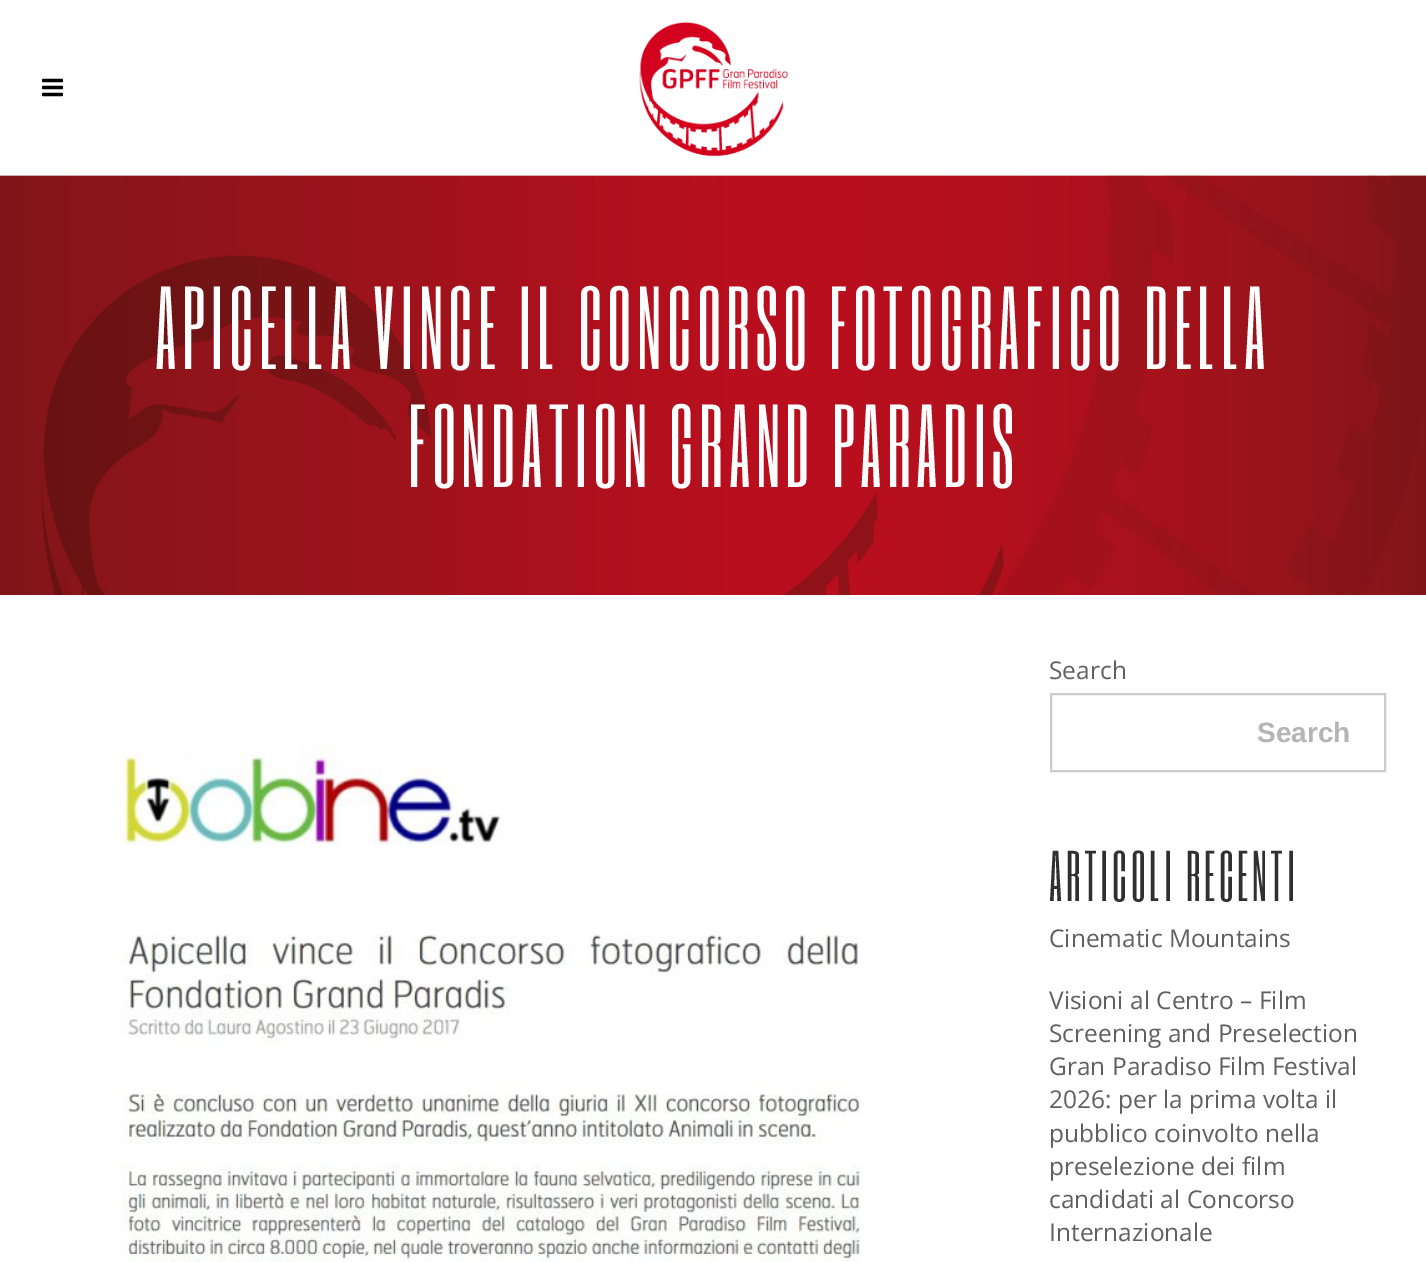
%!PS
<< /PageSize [1426 1262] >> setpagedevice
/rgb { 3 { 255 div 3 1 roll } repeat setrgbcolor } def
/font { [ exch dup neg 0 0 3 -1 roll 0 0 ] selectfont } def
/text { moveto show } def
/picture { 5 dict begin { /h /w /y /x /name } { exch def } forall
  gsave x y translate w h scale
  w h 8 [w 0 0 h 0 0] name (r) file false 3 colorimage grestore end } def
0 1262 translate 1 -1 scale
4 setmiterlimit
255 255 255 rgb
0 0 1426 1262 rectfill
(img_01.rgb) 42 78 21 19 picture
(img_02.rgb) 639 22 149 134 picture
(img_03.rgb) 0 175 1426 420 picture
(img_04.rgb) 121 745 740 517 picture
205 205 205 rgb
2 setlinewidth
1051 694 334 77 rectstroke
/SixCaps-Regular 98 font
255 255 255 rgb
155 369 moveto 5.25 0 (APICELLA VINCE IL CONCORSO FOTOGRAFICO DELLA) ashow
408 487 moveto 5.25 0 (FONDATION GRAND PARADIS) ashow
/OpenSans-Regular 24.5 font
96 96 96 rgb
(Search) 1049 679 text
/LiberationSans-Bold 28 font
181 181 181 rgb
(Search) 1257 742 text
/SixCaps-Regular 59.5 font
48 48 48 rgb
1049 901 moveto 3.5 0 (ARTICOLI RECENTI) ashow
/OpenSans-Regular 24.5 font
96 96 96 rgb
(Cinematic Mountains) 1049 947 text
(Visioni al Centro – Film) 1049 1009 text
(Screening and Preselection) 1049 1042 text
(Gran Paradiso Film Festival) 1049 1075 text
(2026: per la prima volta il) 1049 1108 text
(pubblico coinvolto nella) 1049 1142 text
(preselezione dei film) 1049 1175 text
(candidati al Concorso) 1049 1208 text
(Internazionale) 1049 1241 text
showpage
